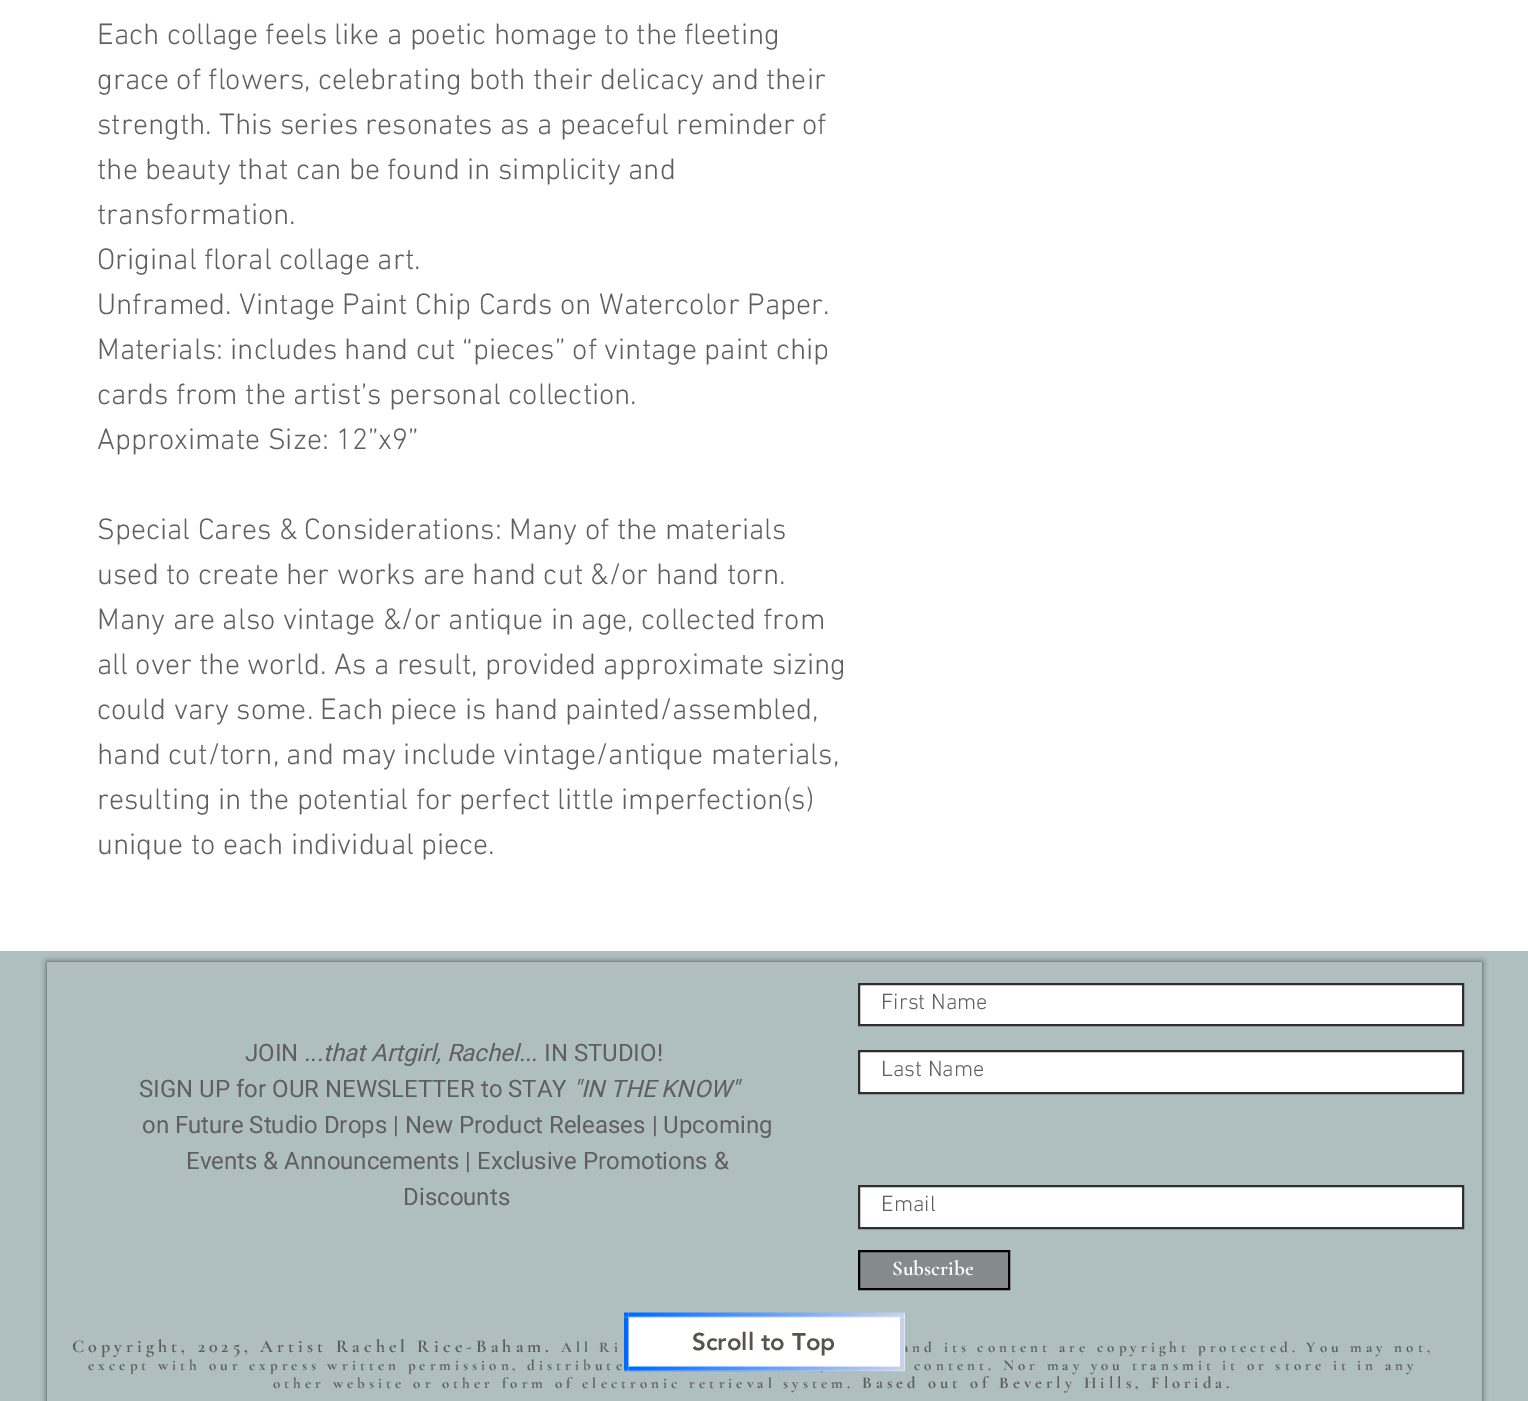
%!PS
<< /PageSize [1528 1401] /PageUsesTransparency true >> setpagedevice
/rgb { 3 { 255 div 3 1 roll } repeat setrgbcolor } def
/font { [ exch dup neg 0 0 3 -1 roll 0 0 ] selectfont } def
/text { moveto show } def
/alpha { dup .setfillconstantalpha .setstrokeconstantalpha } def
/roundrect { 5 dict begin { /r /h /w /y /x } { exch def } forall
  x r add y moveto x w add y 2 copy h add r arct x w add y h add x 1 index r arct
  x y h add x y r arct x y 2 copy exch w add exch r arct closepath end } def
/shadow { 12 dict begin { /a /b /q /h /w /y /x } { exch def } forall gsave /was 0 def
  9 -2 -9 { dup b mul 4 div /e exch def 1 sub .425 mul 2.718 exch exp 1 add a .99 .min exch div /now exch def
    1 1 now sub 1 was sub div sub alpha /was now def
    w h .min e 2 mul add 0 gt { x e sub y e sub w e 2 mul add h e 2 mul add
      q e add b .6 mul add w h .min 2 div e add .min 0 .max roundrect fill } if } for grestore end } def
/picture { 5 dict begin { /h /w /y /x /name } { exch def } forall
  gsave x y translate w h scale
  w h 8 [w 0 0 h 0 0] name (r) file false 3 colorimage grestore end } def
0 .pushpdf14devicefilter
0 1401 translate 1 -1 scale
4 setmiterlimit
255 255 255 rgb
0 0 1528 1401 rectfill
175 190 191 rgb
0 951 1528 450 rectfill
gsave
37 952 moveto 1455 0 rlineto 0 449 rlineto -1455 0 rlineto closepath 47 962 moveto 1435 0 rlineto 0 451 rlineto -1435 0 rlineto closepath eoclip newpath
0 0 0 rgb
47 962 1435 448 0 3 0.6 shadow
grestore
255 255 255 rgb
859 984 moveto 604 0 rlineto 0 41 rlineto -604 0 rlineto closepath gsave fill grestore
47 46 46 rgb
2 setlinewidth
stroke
255 255 255 rgb
859 1051 moveto 604 0 rlineto 0 42 rlineto -604 0 rlineto closepath gsave fill grestore
47 46 46 rgb
stroke
255 255 255 rgb
859 1186 moveto 604 0 rlineto 0 42 rlineto -604 0 rlineto closepath gsave fill grestore
47 46 46 rgb
stroke
133 139 140 rgb
859 1251 moveto 150 0 rlineto 0 38 rlineto -150 0 rlineto closepath gsave fill grestore
0 0 0 rgb
stroke
/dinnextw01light-Light 30 font
96 94 94 rgb
(Each collage feels like a poetic homage to the fleeting) 97 44 text
(grace of flowers, celebrating both their delicacy and their) 97 89 text
(strength. This series resonates as a peaceful reminder of) 97 134 text
(the beauty that can be found in simplicity and) 97 179 text
(transformation.) 97 224 text
(Original floral collage art.) 97 269 text
(Unframed. Vintage Paint Chip Cards on Watercolor Paper.) 97 314 text
(Materials: includes hand cut “pieces” of vintage paint chip) 97 359 text
(cards from the artist’s personal collection.) 97 404 text
(Approximate Size: 12”x9”) 97 449 text
(Special Cares & Considerations: Many of the materials) 97 539 text
(used to create her works are hand cut &/or hand torn.) 97 584 text
(Many are also vintage &/or antique in age, collected from) 97 629 text
(all over the world. As a result, provided approximate sizing) 97 674 text
(could vary some. Each piece is hand painted/assembled,) 97 719 text
(hand cut/torn, and may include vintage/antique materials,) 97 764 text
(resulting in the potential for perfect little imperfection\(s\)) 97 809 text
(unique to each individual piece.) 97 854 text
/dinnextw01light-Light 22.5 font
(First Name) 881 1009 text
/Heebo-Regular 24 font
(JOIN) 245 1061 text
/Heebo-Italic 24 font
(...that Artgirl, Rachel...) 304 1061 text
/Heebo-Regular 24 font
(IN STUDIO!) 544 1061 text
(SIGN UP for OUR NEWSLETTER to STAY) 139 1097 text
/Heebo-Italic 24 font
("IN THE KNOW") 573 1097 text
/Heebo-Regular 24 font
(on Future Studio Drops | New Product Releases | Upcoming) 142 1133 text
(Events & Announcements | Exclusive Promotions &) 186 1169 text
(Discounts) 403 1205 text
/dinnextw01light-Light 22.5 font
(Last Name) 881 1076 text
(Email) 881 1211 text
/CormorantGaramond-Bold 21 font
255 255 255 rgb
(Subscribe) 892 1275 text
/CormorantGaramond-Bold 18 font
96 94 94 rgb
72 1352 moveto 4.05 0 (Copyright, 2025, Artist Rachel Rice-Baham.) ashow
/CormorantGaramond-Bold 15 font
561 1352 moveto 4.05 0 (All Ri) ashow
902 1352 moveto 4.05 0 (and its content are copyright protected. You may not,) ashow
88 1370 moveto 4.05 0 (except with our express written permission, distribute) ashow
914 1370 moveto 4.05 0 (content. Nor may you transmit it or store it in any) ashow
273 1388 moveto 4.05 0 (other website or other form of electronic retrieval system.) ashow
/CormorantGaramond-Bold 16.5 font
862 1388 moveto 4.05 0 (Based out of Beverly Hills, Florida.) ashow
255 255 255 rgb
624 1313 281 58 rectfill
(img_01.rgb) 624 1312 281 60 picture
/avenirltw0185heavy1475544-Black 24 font
89 81 77 rgb
(Scroll to Top) 692 1350 text
.poppdf14devicefilter showpage
